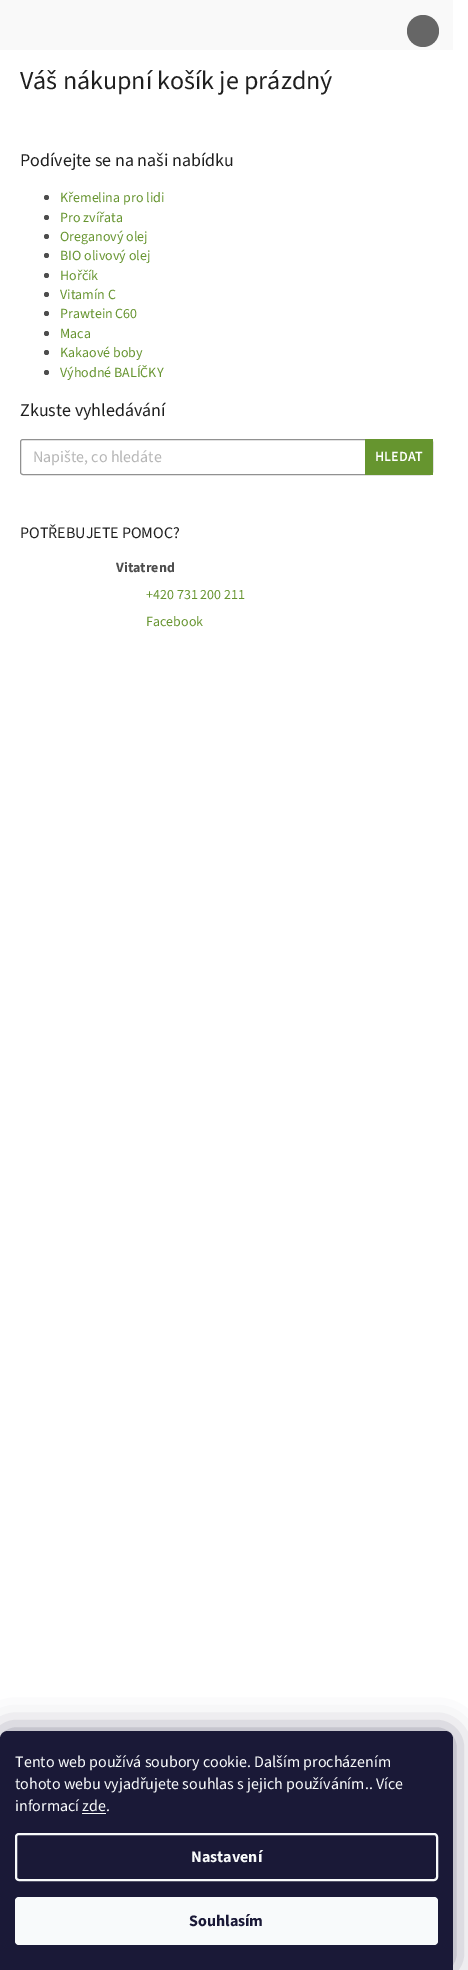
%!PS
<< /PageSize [468 1970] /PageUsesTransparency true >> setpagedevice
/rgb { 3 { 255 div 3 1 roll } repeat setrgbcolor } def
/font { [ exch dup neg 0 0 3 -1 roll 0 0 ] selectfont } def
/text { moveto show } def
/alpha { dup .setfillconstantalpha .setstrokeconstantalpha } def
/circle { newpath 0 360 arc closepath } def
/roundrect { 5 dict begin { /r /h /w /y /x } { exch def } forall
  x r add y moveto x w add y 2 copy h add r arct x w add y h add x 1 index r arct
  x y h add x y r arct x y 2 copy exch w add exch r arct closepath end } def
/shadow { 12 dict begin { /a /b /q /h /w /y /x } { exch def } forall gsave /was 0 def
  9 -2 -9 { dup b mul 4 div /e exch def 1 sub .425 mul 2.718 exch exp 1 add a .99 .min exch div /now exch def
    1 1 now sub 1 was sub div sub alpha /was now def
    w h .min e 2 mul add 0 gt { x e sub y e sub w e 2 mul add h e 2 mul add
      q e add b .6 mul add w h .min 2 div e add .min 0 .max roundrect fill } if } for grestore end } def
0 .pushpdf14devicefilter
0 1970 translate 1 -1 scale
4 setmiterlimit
255 255 255 rgb
0 0 468 1970 rectfill
249 249 249 rgb
0 0 453 50 rectfill
102 102 102 rgb
423 31 16 circle fill
77 77 77 rgb
46.5 197.5 2.5 circle fill
46.5 217.5 2.5 circle fill
46.5 236.5 2.5 circle fill
46.5 255.5 2.5 circle fill
46.5 275.5 2.5 circle fill
46.5 294.5 2.5 circle fill
46.5 313.5 2.5 circle fill
46.5 333.5 2.5 circle fill
46.5 352.5 2.5 circle fill
46.5 372.5 2.5 circle fill
145 145 145 rgb
20.5 439.5 412 35 2.5 roundrect stroke
102 149 47 rgb
365 439 68 36 rectfill
27 25 57 rgb
0 1731 453 239 8 15 0.5 shadow
26 25 55 rgb
8 1731 moveto 437 0 rlineto 4.5 0 8 3.5 8 8 rcurveto 0 231 rlineto -453 0 rlineto 0 -231 rlineto 0 -4.5 3.5 -8 8 -8 rcurveto closepath fill
248 250 251 rgb
82 1813 24 1 rectfill
2 setlinewidth
16 1834 421 46 3 roundrect stroke
15 1897 423 48 4 roundrect fill
/SourceSans3-Regular 26 font
31 31 31 rgb
(Váš nákupní košík je prázdný) 20 89 text
/SourceSans3-Regular 18 font
(Podívejte se na naši nabídku) 20 166 text
/SourceSans3-Regular 14 font
102 148 47 rgb
(Křemelina pro lidi) 60 202 text
(Pro zvířata) 60 222 text
(Oreganový olej) 60 241 text
(BIO olivový olej) 60 260 text
(Hořčík) 60 280 text
(Vitamín C) 60 299 text
(Prawtein C60) 60 318 text
(Maca) 60 338 text
(Kakaové boby) 60 357 text
(Výhodné BALÍČKY) 60 377 text
/SourceSans3-Regular 18 font
31 31 31 rgb
(Zkuste vyhledávání) 20 416 text
/SourceSans3-Regular 16 font
182 182 182 rgb
(Napište, co hledáte) 33 462 text
/SourceSans3-SemiBold 14 font
255 255 255 rgb
(HLEDAT) 375 461 text
/SourceSans3-Regular 16 font
31 31 31 rgb
(POTŘEBUJETE POMOC?) 20 538 text
/SourceSans3-Bold 14 font
77 77 77 rgb
(Vitatrend) 116 572 text
/SourceSans3-Regular 14 font
102 148 47 rgb
(+420 731 200 211) 146 599 text
(Facebook) 146 626 text
/SourceSans3-Regular 16 font
248 250 251 rgb
(Tento web používá soubory cookie. Dalším procházením) 15 1767 text
(tohoto webu vyjadřujete souhlas s jejich používáním.. Více) 15 1789 text
(informací zde.) 15 1811 text
/SourceSans3-Bold 16 font
(Nastavení) 191 1862 text
26 25 55 rgb
(Souhlasím) 189 1926 text
.poppdf14devicefilter showpage
